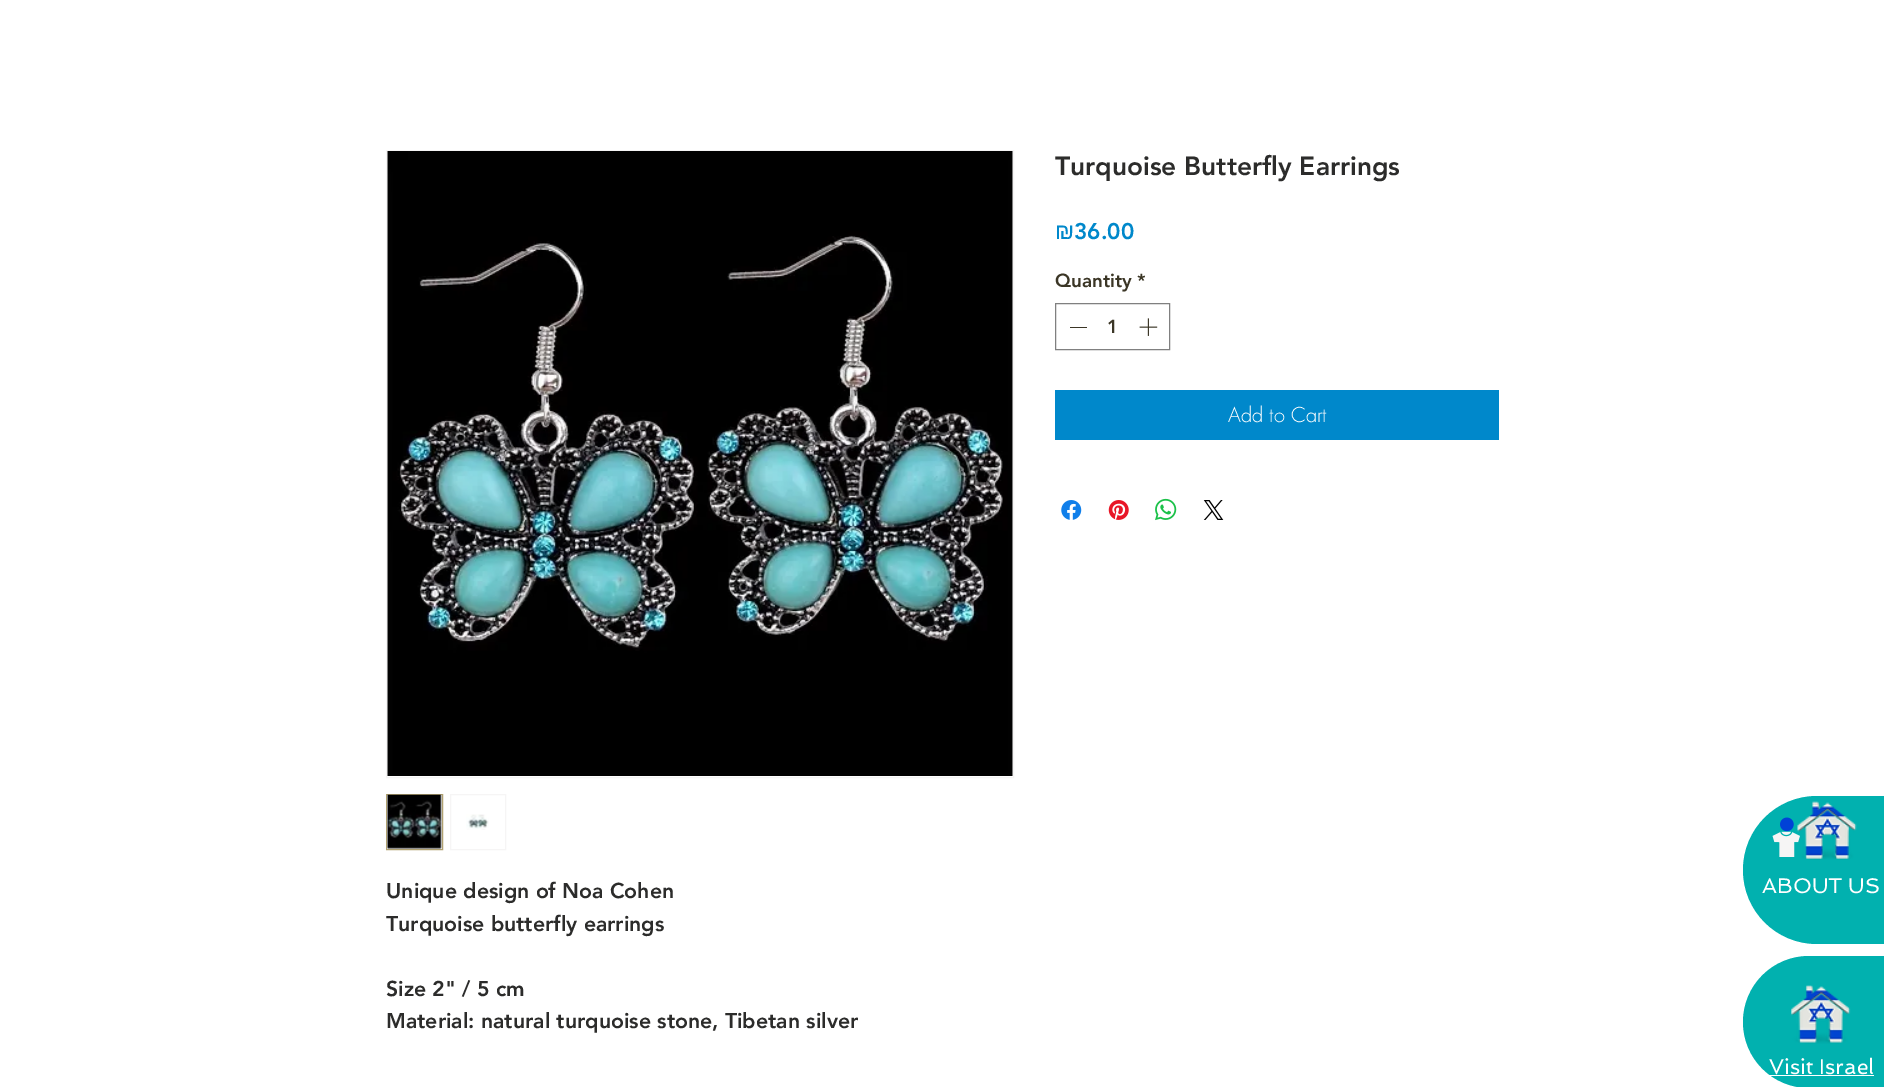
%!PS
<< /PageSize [1884 1087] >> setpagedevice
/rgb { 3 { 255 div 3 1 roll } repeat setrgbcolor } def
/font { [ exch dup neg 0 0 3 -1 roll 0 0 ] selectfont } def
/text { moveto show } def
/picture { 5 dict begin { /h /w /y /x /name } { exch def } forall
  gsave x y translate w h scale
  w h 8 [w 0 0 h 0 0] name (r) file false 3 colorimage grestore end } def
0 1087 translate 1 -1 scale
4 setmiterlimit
255 255 255 rgb
0 0 1884 1087 rectfill
128 128 128 rgb
1055.5 303.5 114 46 rectstroke
59 54 38 rgb
1070 327 17 1 rectfill
(img_01.rgb) 1139 318 19 18 picture
0 136 203 rgb
1055 390 444 50 rectfill
(img_02.rgb) 1061 500 21 20 picture
(img_03.rgb) 1108 500 21 20 picture
(img_04.rgb) 1155 498 22 23 picture
(img_05.rgb) 1203 500 21 20 picture
246 245 245 rgb
386.5 150.5 627 627 rectstroke
(img_06.rgb) 387 151 626 625 picture
176 161 113 rgb
386.5 794.5 56 55 rectstroke
(img_07.rgb) 387 794 55 55 picture
246 245 245 rgb
450.5 794.5 55 55 rectstroke
(img_08.rgb) 466 814 23 16 picture
1 177 175 rgb
1817 796 moveto 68 0 rlineto 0 148 rlineto -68 0 rlineto -41 0 -74 -33 -74 -74 rcurveto 0 -41 33 -74 74 -74 rcurveto closepath fill
(img_09.rgb) 1780 817 14 15 picture
(img_11.rgb) 1797 801 60 59 picture
(img_10.rgb) 1772 831 28 26 picture
1809 956 moveto 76 0 rlineto 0 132 rlineto -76 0 rlineto -36.5 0 -66 -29.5 -66 -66 rcurveto 0 -36.5 29.5 -66 66 -66 rcurveto closepath fill
(img_12.rgb) 1791 985 60 59 picture
255 255 255 rgb
1769 1075 105 1 rectfill
/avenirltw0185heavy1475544-Black 26.25 font
44 44 43 rgb
(Turquoise Butterfly Earrings) 1055 175 text
/LiberationSans-Regular 22.5 font
0 136 203 rgb
(₪) 1055 239 text
/avenirltw0185heavy1475544-Black 22.5 font
(36.00) 1074 239 text
/avenirltw0185heavy1475544-Black 18.75 font
59 54 38 rgb
(Quantity) 1055 287 text
(*) 1137 287 text
(1) 1107 333 text
/futura-Light 20 font
255 255 255 rgb
(Add to Cart) 1228 422 text
/avenirltw0185heavy1475544-Black 21.25 font
44 44 43 rgb
(Unique design of Noa Cohen) 386 898 text
(Turquoise butterfly earrings) 386 931 text
(Size 2" / 5 cm) 386 996 text
(Material: natural turquoise stone, Tibetan silver) 386 1028 text
/Spinnaker-Regular 21.25 font
255 255 255 rgb
(ABOUT US) 1762 893 text
(Visit Israel) 1769 1074 text
showpage
